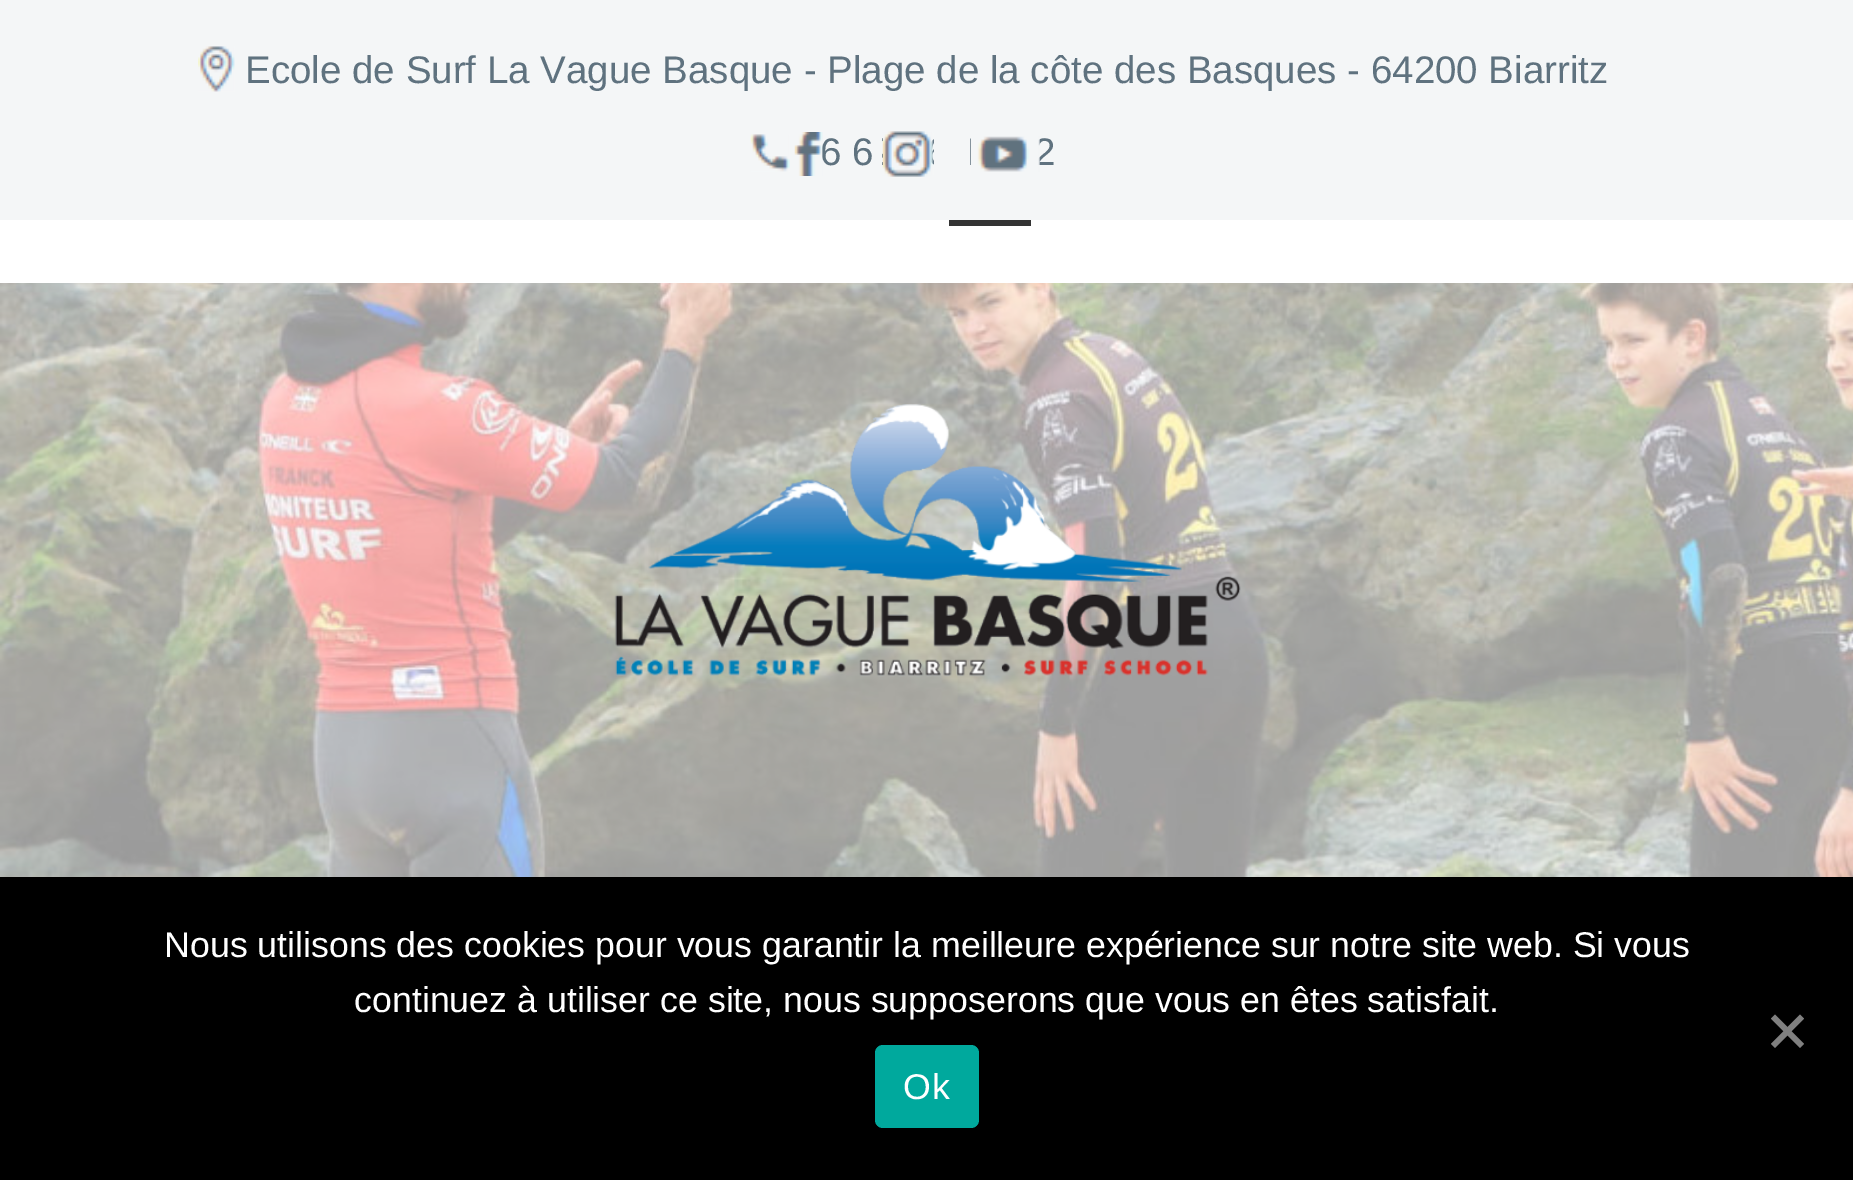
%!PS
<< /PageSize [1853 1180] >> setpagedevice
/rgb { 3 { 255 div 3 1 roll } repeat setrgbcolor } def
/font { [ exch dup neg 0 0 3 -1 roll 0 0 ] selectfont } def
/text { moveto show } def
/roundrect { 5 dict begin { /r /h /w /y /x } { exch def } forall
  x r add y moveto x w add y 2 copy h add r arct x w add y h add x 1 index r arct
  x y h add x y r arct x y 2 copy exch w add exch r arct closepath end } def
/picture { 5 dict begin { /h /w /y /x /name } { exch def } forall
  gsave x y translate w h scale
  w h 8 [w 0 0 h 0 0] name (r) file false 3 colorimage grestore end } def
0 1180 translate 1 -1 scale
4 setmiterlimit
255 255 255 rgb
0 0 1853 1180 rectfill
244 246 247 rgb
0 0 1853 220 rectfill
(img_01.rgb) 198 46 37 46 picture
(img_02.rgb) 750 134 40 38 picture
(img_04.rgb) 882 131 52 46 picture
(img_06.rgb) 0 283 1853 594 picture
51 51 51 rgb
949 220 82 6 rectfill
(img_07.rgb) 614 404 627 273 picture
0 0 0 rgb
0 877 1853 303 rectfill
128 128 128 rgb
1800 1014.5 moveto 4 4 rlineto -29 29.5 rlineto -4 -4 rlineto closepath fill
1771 1018.5 moveto 4 -4 rlineto 29 29.5 rlineto -4 4 rlineto closepath fill
0 169 157 rgb
875 1045 104 83 8 roundrect fill
/LiberationSans-Regular 38.5 font
95 114 127 rgb
(Ecole de Surf La Vague Basque - Plage de la côte des Basques - 64200 Biarritz) 245 83 text
(6 6) 820 165 text
(2) 1034 165 text
(img_03.rgb) 794 132 29 44 picture
(img_05.rgb) 970 136 70 36 picture
/LiberationSans-Regular 35.75 font
255 255 255 rgb
(Nous utilisons des cookies pour vous garantir la meilleure expérience sur notre site web. Si vous) 164 957 text
(continuez à utiliser ce site, nous supposerons que vous en êtes satisfait.) 354 1012 text
903 1099 moveto 1 0 (Ok) ashow
showpage
